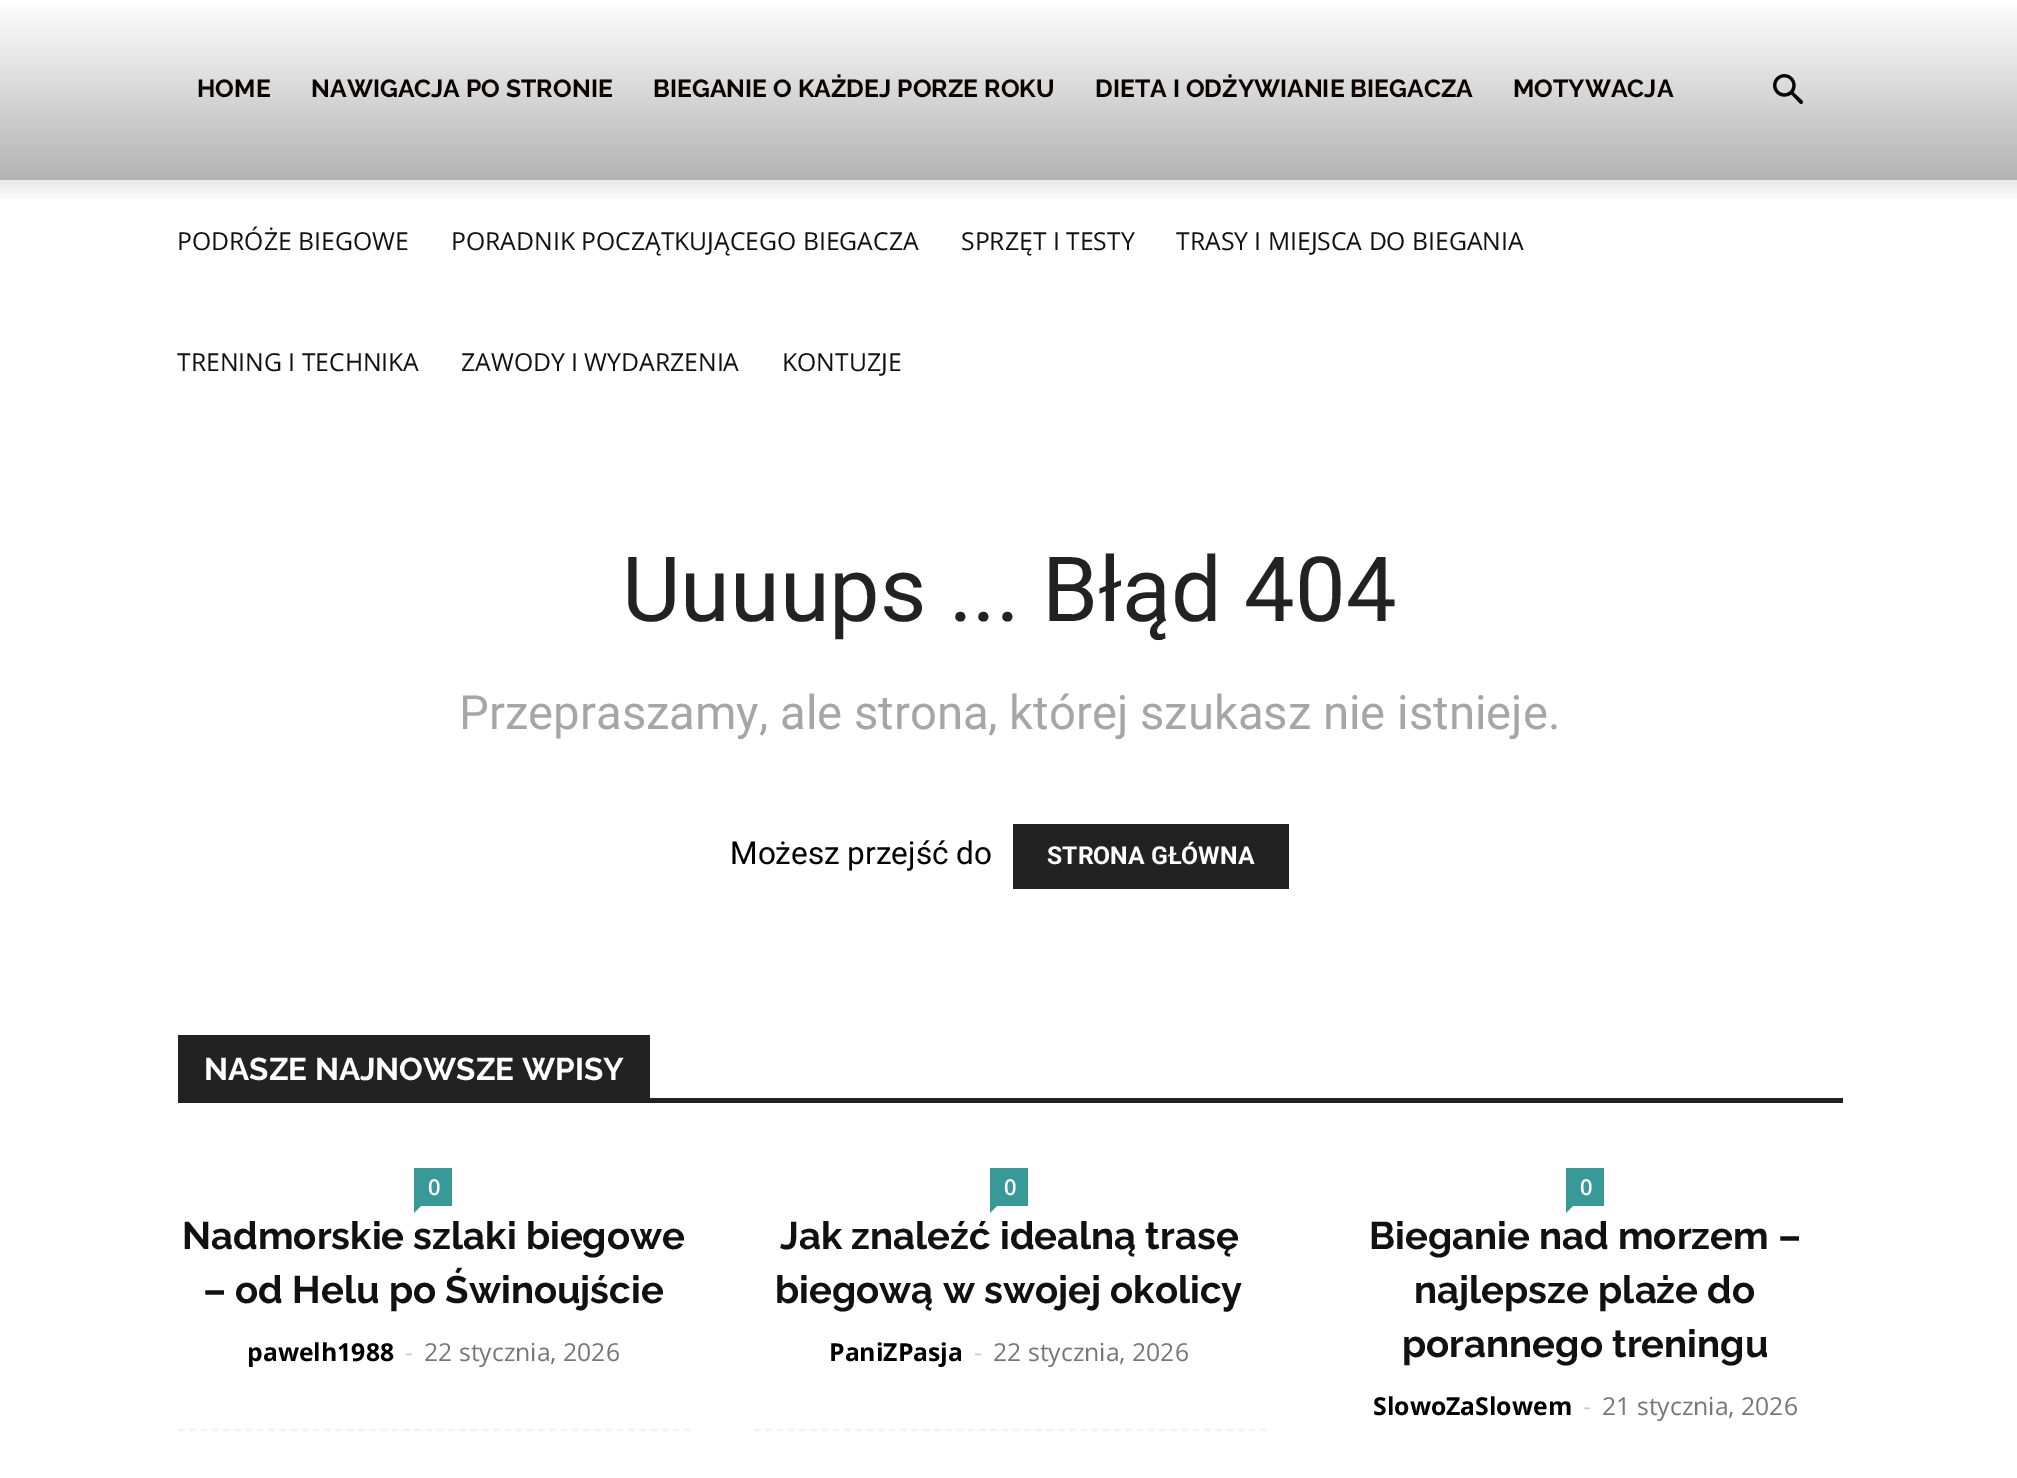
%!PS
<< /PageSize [2017 1478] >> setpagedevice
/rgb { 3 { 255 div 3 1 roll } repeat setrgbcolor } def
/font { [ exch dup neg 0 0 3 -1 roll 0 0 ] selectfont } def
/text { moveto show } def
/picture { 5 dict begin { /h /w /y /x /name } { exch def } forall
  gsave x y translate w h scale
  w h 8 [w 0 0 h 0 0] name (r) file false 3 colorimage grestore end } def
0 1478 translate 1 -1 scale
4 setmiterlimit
255 255 255 rgb
0 0 2017 1478 rectfill
gsave 0 6 moveto 2017 0 rlineto 0 174 rlineto -2017 0 rlineto closepath clip newpath
<< /ShadingType 2 /ColorSpace /DeviceRGB /Coords [1009 0 1009 180] /Extend [true true] /Function << /FunctionType 2 /Domain [0 1] /C0 [1 1 1] /C1 [0.702 0.702 0.702] /N 1 >> >> shfill grestore
(img_01.rgb) 1773 74 31 30 picture
(img_02.rgb) 0 180 2017 19 picture
34 34 34 rgb
1013 824 276 65 rectfill
178 1098 1665 5 rectfill
178 1035 472 63 rectfill
242 242 242 rgb
2.2 setlinewidth
[6.75 4.5] 0 setdash
178 1430 moveto 513 0 rlineto stroke
57 153 152 rgb
414 1168 38 38 rectfill
414 1206 moveto 7 0 rlineto -7 7 rlineto closepath fill
242 242 242 rgb
754 1430 moveto 513 0 rlineto stroke
57 153 152 rgb
990 1168 38 38 rectfill
990 1206 moveto 7 0 rlineto -7 7 rlineto closepath fill
1566 1168 38 38 rectfill
1566 1206 moveto 7 0 rlineto -7 7 rlineto closepath fill
/Raleway-Bold 24.75 font
10 3 3 rgb
(HOME) 197 97 text
(NAWIGACJA PO STRONIE) 311 97 text
(BIEGANIE O KAŻDEJ PORZE ROKU) 653 97 text
(DIETA I ODŻYWIANIE BIEGACZA) 1095 97 text
(MOTYWACJA) 1513 97 text
/OpenSans-Regular 24.75 font
17 17 17 rgb
(PODRÓŻE BIEGOWE) 177 250 text
(PORADNIK POCZĄTKUJĄCEGO BIEGACZA) 451 250 text
(SPRZĘT I TESTY) 961 250 text
(TRASY I MIEJSCA DO BIEGANIA) 1176 250 text
(TRENING I TECHNIKA) 177 371 text
(ZAWODY I WYDARZENIA) 461 371 text
(KONTUZJE) 782 371 text
/Roboto-Regular 90 font
34 34 34 rgb
(Uuuups ... Błąd 404) 622 621 text
/Roboto-Regular 47.25 font
166 166 166 rgb
(Przepraszamy, ale strona, której szukasz nie istnieje.) 459 729 text
/Roboto-Regular 31.5 font
0 0 0 rgb
(Możesz przejść do) 730 864 text
/Roboto-Bold 24.75 font
255 255 255 rgb
(STRONA GŁÓWNA) 1047 864 text
/Raleway-Bold 31.5 font
(NASZE NAJNOWSZE WPISY) 204 1080 text
/OpenSans-SemiBold 22 font
(0) 428 1195 text
/Raleway-Bold 38.25 font
17 17 17 rgb
(Nadmorskie szlaki biegowe) 182 1249 text
(– od Helu po Świnoujście) 203 1303 text
/OpenSans-Bold 24.75 font
0 0 0 rgb
(pawelh1988) 247 1361 text
/OpenSans-Regular 24.75 font
204 204 204 rgb
(-) 405 1361 text
118 118 118 rgb
(22 stycznia, 2026) 424 1361 text
/OpenSans-SemiBold 22 font
255 255 255 rgb
(0) 1004 1195 text
/Raleway-Bold 38.25 font
17 17 17 rgb
(Jak znaleźć idealną trasę) 780 1249 text
(biegową w swojej okolicy) 775 1303 text
/OpenSans-Bold 24.75 font
0 0 0 rgb
(PaniZPasja) 829 1361 text
/OpenSans-Regular 24.75 font
204 204 204 rgb
(-) 974 1361 text
118 118 118 rgb
(22 stycznia, 2026) 993 1361 text
/OpenSans-SemiBold 22 font
255 255 255 rgb
(0) 1580 1195 text
/Raleway-Bold 38.25 font
17 17 17 rgb
(Bieganie nad morzem –) 1369 1249 text
(najlepsze plaże do) 1414 1303 text
(porannego treningu) 1402 1357 text
/OpenSans-Bold 24.75 font
0 0 0 rgb
(SlowoZaSlowem) 1373 1415 text
/OpenSans-Regular 24.75 font
204 204 204 rgb
(-) 1583 1415 text
118 118 118 rgb
(21 stycznia, 2026) 1602 1415 text
showpage
